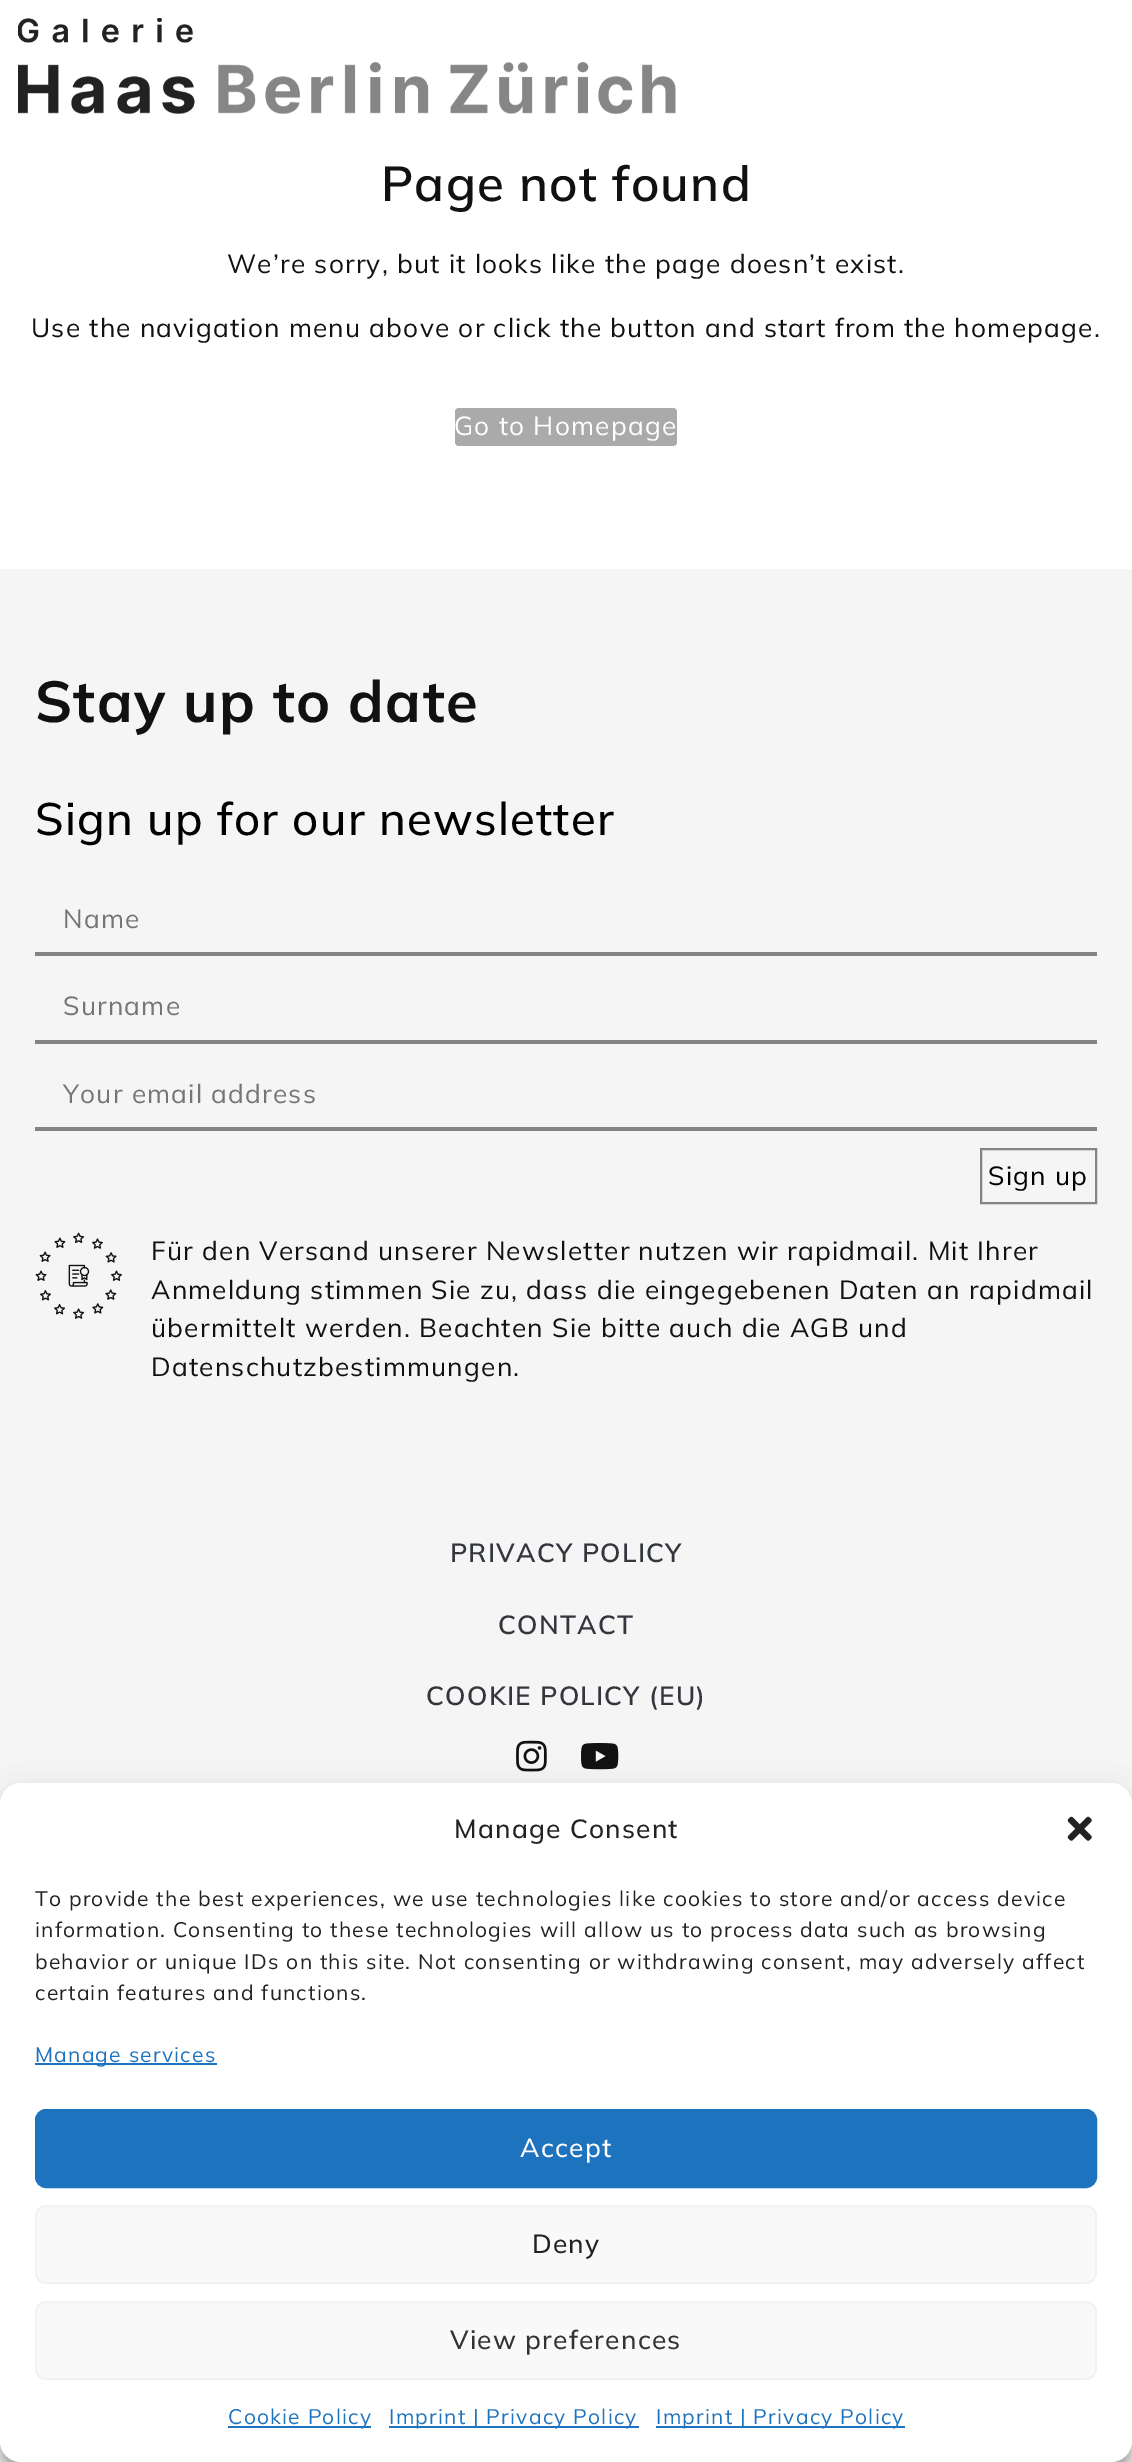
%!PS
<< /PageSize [1132 2462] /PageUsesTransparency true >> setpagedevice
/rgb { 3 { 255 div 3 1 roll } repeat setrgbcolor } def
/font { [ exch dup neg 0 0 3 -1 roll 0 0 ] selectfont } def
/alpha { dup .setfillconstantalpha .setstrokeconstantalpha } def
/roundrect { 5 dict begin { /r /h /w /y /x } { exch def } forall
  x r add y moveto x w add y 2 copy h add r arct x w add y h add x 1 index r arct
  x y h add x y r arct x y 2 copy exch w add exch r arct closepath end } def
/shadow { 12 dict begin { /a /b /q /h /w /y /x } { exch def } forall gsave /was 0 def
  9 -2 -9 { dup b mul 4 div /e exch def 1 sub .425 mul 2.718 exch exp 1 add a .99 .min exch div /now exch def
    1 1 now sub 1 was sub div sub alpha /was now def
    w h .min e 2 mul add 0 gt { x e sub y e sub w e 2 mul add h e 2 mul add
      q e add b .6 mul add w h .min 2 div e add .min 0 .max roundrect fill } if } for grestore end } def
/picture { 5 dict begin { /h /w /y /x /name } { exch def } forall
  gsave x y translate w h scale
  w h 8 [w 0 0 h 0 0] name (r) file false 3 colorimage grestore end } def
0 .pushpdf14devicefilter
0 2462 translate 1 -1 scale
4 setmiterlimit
255 255 255 rgb
0 0 1132 2462 rectfill
(img_01.rgb) 18 18 658 96 picture
170 170 170 rgb
455 408 222 38 4 roundrect fill
245 245 245 rgb
0 569 1132 1235 rectfill
132 132 132 rgb
35 952 1062 4 rectfill
35 1040 1062 4 rectfill
35 1127 1062 4 rectfill
2 setlinewidth
981 1149 115 54 rectstroke
(img_02.rgb) 35 1232 87 87 picture
(img_03.rgb) 516 1740 31 32 picture
(img_04.rgb) 581 1743 38 27 picture
0 0 0 rgb
0 1794 1132 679 21 5 0.23 shadow
0 1801 1132 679 21 17.5 0.19 shadow
255 255 255 rgb
0 1783 1132 679 21 roundrect fill
(img_05.rgb) 1067 1816 25 25 picture
30 115 190 rgb
35 2063 182 2 rectfill
36 2110 1060 77 10 roundrect gsave fill grestore
stroke
249 249 249 rgb
36 2206 1060 77 10 roundrect gsave fill grestore
242 242 242 rgb
stroke
249 249 249 rgb
36 2302 1060 77 10 roundrect gsave fill grestore
242 242 242 rgb
stroke
30 115 190 rgb
228 2426 143 2 rectfill
389 2426 250 2 rectfill
656 2426 249 2 rectfill
/Mulish-SemiBold 49 font
17 17 17 rgb
381 201 moveto 1.22 0 (Page not found) ashow
/Mulish-Regular 26.25 font
227 273 moveto 1.22 0 (We’re sorry, but it looks like the page doesn’t exist.) ashow
31 337 moveto 1.22 0 (Use the navigation menu above or click the button and start from the homepage.) ashow
255 255 255 rgb
454 435 moveto 1.22 0 (Go to Homepage) ashow
/Mulish-Bold 57.75 font
17 17 17 rgb
35 722 moveto 1.22 0 (Stay up to date) ashow
/Mulish-Medium 45.5 font
0 0 0 rgb
35 835 moveto 1.22 0 (Sign up for our newsletter) ashow
/Mulish-Regular 26.25 font
117 117 117 rgb
63 928 moveto 1.22 0 (Name) ashow
63 1015 moveto 1.22 0 (Surname) ashow
63 1103 moveto 1.22 0 (Your email address) ashow
0 0 0 rgb
988 1185 moveto 1.22 0 (Sign up) ashow
17 17 17 rgb
151 1260 moveto 1.22 0 (Für den Versand unserer Newsletter nutzen wir rapidmail. Mit Ihrer) ashow
151 1299 moveto 1.22 0 (Anmeldung stimmen Sie zu, dass die eingegebenen Daten an rapidmail) ashow
151 1337 moveto 1.22 0 (übermittelt werden. Beachten Sie bitte auch die AGB und) ashow
151 1376 moveto 1.22 0 (Datenschutzbestimmungen.) ashow
/Mulish-SemiBold 26.25 font
51 55 61 rgb
450 1562 moveto 1.22 0 (PRIVACY POLICY) ashow
498 1634 moveto 1.22 0 (CONTACT) ashow
426 1705 moveto 1.22 0 (COOKIE POLICY \(EU\)) ashow
/Mulish-Medium 26.25 font
34 34 34 rgb
454 1838 moveto 1.22 0 (Manage Consent) ashow
/Mulish-Regular 21 font
35 1906 moveto 1.22 0 (To provide the best experiences, we use technologies like cookies to store and/or access device) ashow
35 1937 moveto 1.22 0 (information. Consenting to these technologies will allow us to process data such as browsing) ashow
35 1969 moveto 1.22 0 (behavior or unique IDs on this site. Not consenting or withdrawing consent, may adversely affect) ashow
35 2000 moveto 1.22 0 (certain features and functions.) ashow
30 115 190 rgb
35 2062 moveto 1.22 0 (Manage services) ashow
/Mulish-Medium 26.25 font
255 255 255 rgb
520 2157 moveto 1.22 0 (Accept) ashow
34 34 34 rgb
532 2253 moveto 1.22 0 (Deny) ashow
51 51 51 rgb
450 2349 moveto 1.22 0 (View preferences) ashow
/Mulish-Regular 21 font
30 115 190 rgb
228 2424 moveto 1.22 0 (Cookie Policy) ashow
389 2424 moveto 1.22 0 (Imprint | Privacy Policy) ashow
656 2424 moveto 1.22 0 (Imprint | Privacy Policy) ashow
.poppdf14devicefilter showpage
